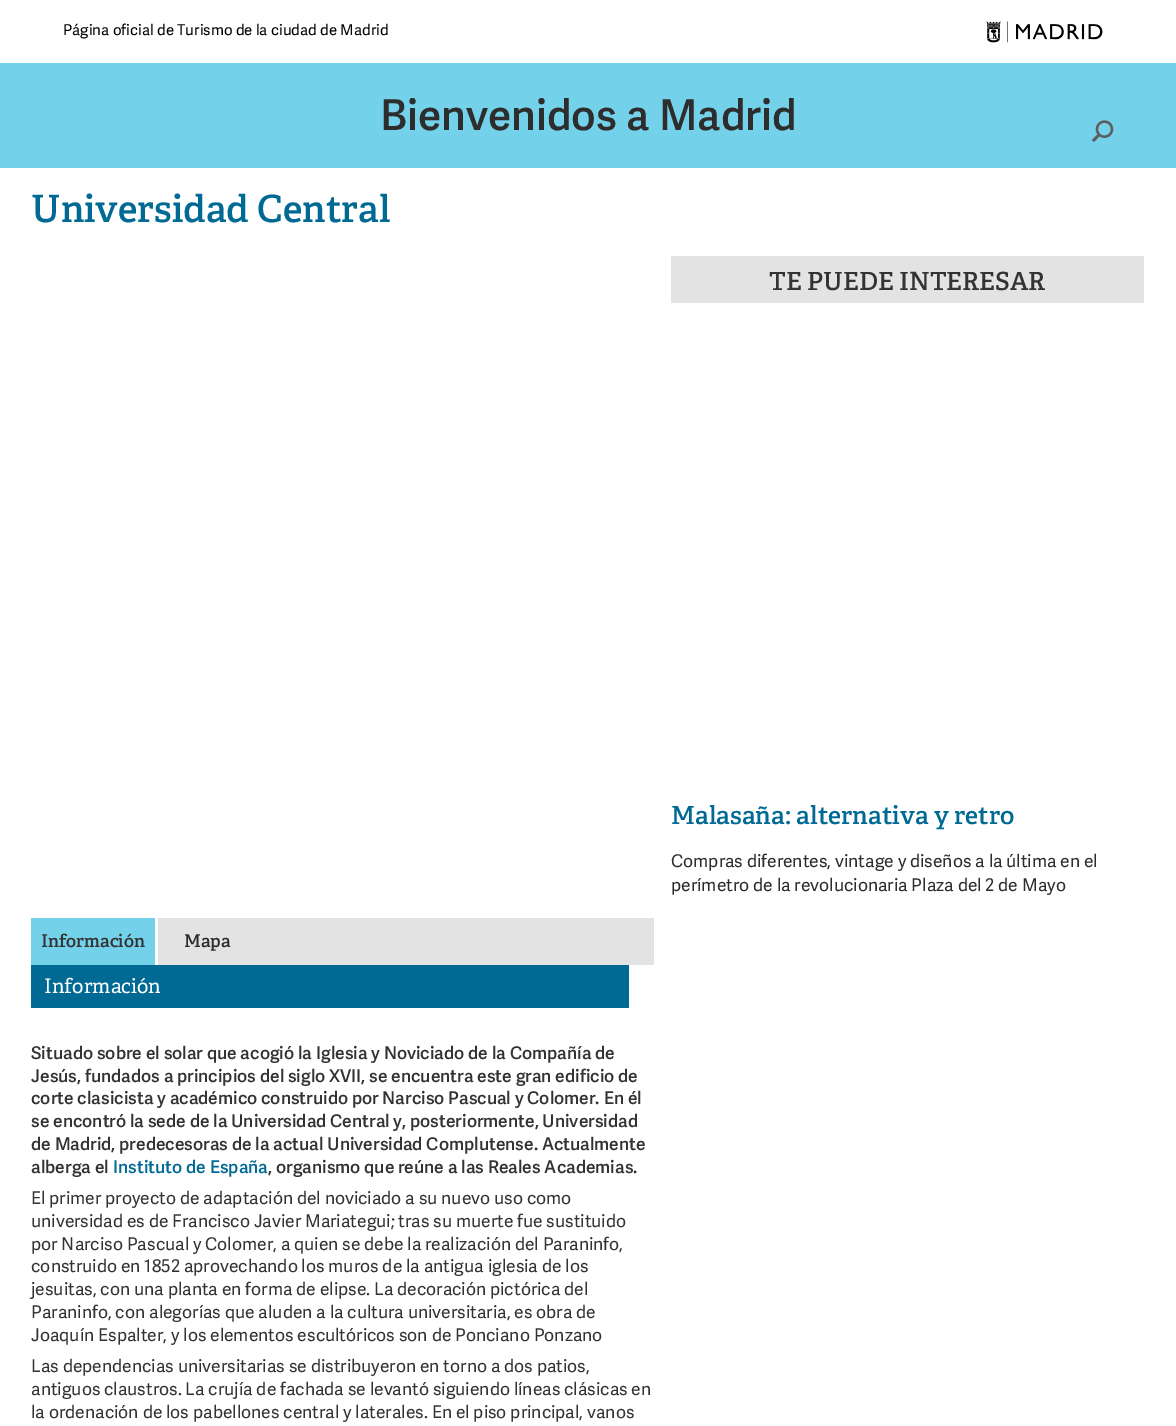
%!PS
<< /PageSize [1176 1426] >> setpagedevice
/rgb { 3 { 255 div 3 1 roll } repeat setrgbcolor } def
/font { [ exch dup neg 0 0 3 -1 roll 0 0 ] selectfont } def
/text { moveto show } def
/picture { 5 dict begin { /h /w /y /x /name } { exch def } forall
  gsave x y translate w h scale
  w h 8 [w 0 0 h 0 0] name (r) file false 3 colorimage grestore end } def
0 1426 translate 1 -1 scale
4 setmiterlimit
255 255 255 rgb
0 0 1176 1426 rectfill
(img_01.rgb) 986 21 117 22 picture
116 209 234 rgb
0 63 1176 105 rectfill
(img_02.rgb) 1091 120 23 22 picture
227 227 227 rgb
671 256 473 47 rectfill
158 918 496 47 rectfill
116 209 234 rgb
31 918 124 47 rectfill
0 106 148 rgb
31 965 598 43 rectfill
/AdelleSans-Regular 15 font
0 0 0 rgb
(Página oficial de Turismo de la ciudad de Madrid) 63 35 text
/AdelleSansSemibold-SemiBold 42.5 font
45 45 45 rgb
(Bienvenidos a Madrid) 380 130 text
/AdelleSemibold-SemiBold 37.5 font
0 106 148 rgb
(Universidad Central) 31 222 text
/AdelleSemibold-SemiBold 25 font
51 51 51 rgb
(TE PUEDE INTERESAR) 769 290 text
0 106 148 rgb
(Malasaña: alternativa y retro) 671 824 text
/AdelleSans-Regular 17.5 font
45 45 45 rgb
(Compras diferentes, vintage y diseños a la última en el) 671 867 text
(perímetro de la revolucionaria Plaza del 2 de Mayo) 671 891 text
/AdelleSemibold-SemiBold 17.5 font
51 51 51 rgb
(Información) 41 947 text
45 45 45 rgb
(Mapa) 184 947 text
/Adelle-Regular 20 font
255 255 255 rgb
(Información) 44 993 text
/AdelleSansSemibold-SemiBold 17.5 font
51 51 51 rgb
(Situado sobre el solar que acogió la Iglesia y Noviciado de la Compañía de) 31 1059 text
(Jesús, fundados a principios del siglo XVII, se encuentra este gran edificio de) 31 1082 text
(corte clasicista y académico construido por Narciso Pascual y Colomer. En él) 31 1104 text
(se encontró la sede de la Universidad Central y, posteriormente, Universidad) 31 1127 text
(de Madrid, predecesoras de la actual Universidad Complutense. Actualmente) 31 1150 text
(alberga el) 31 1173 text
0 106 148 rgb
(Instituto de España) 113 1173 text
51 51 51 rgb
(, organismo que reúne a las Reales Academias.) 268 1173 text
/AdelleSans-Regular 17.5 font
(El primer proyecto de adaptación del noviciado a su nuevo uso como) 31 1204 text
(universidad es de Francisco Javier Mariategui; tras su muerte fue sustituido) 31 1227 text
(por Narciso Pascual y Colomer, a quien se debe la realización del Paraninfo,) 31 1250 text
(construido en 1852 aprovechando los muros de la antigua iglesia de los) 31 1272 text
(jesuitas, con una planta en forma de elipse. La decoración pictórica del) 31 1295 text
(Paraninfo, con alegorías que aluden a la cultura universitaria, es obra de) 31 1318 text
(Joaquín Espalter, y los elementos escultóricos son de Ponciano Ponzano) 31 1341 text
(Las dependencias universitarias se distribuyeron en torno a dos patios,) 31 1372 text
(antiguos claustros. La crujía de fachada se levantó siguiendo líneas clásicas en) 31 1395 text
(la ordenación de los pabellones central y laterales. En el piso principal, vanos) 31 1418 text
showpage
